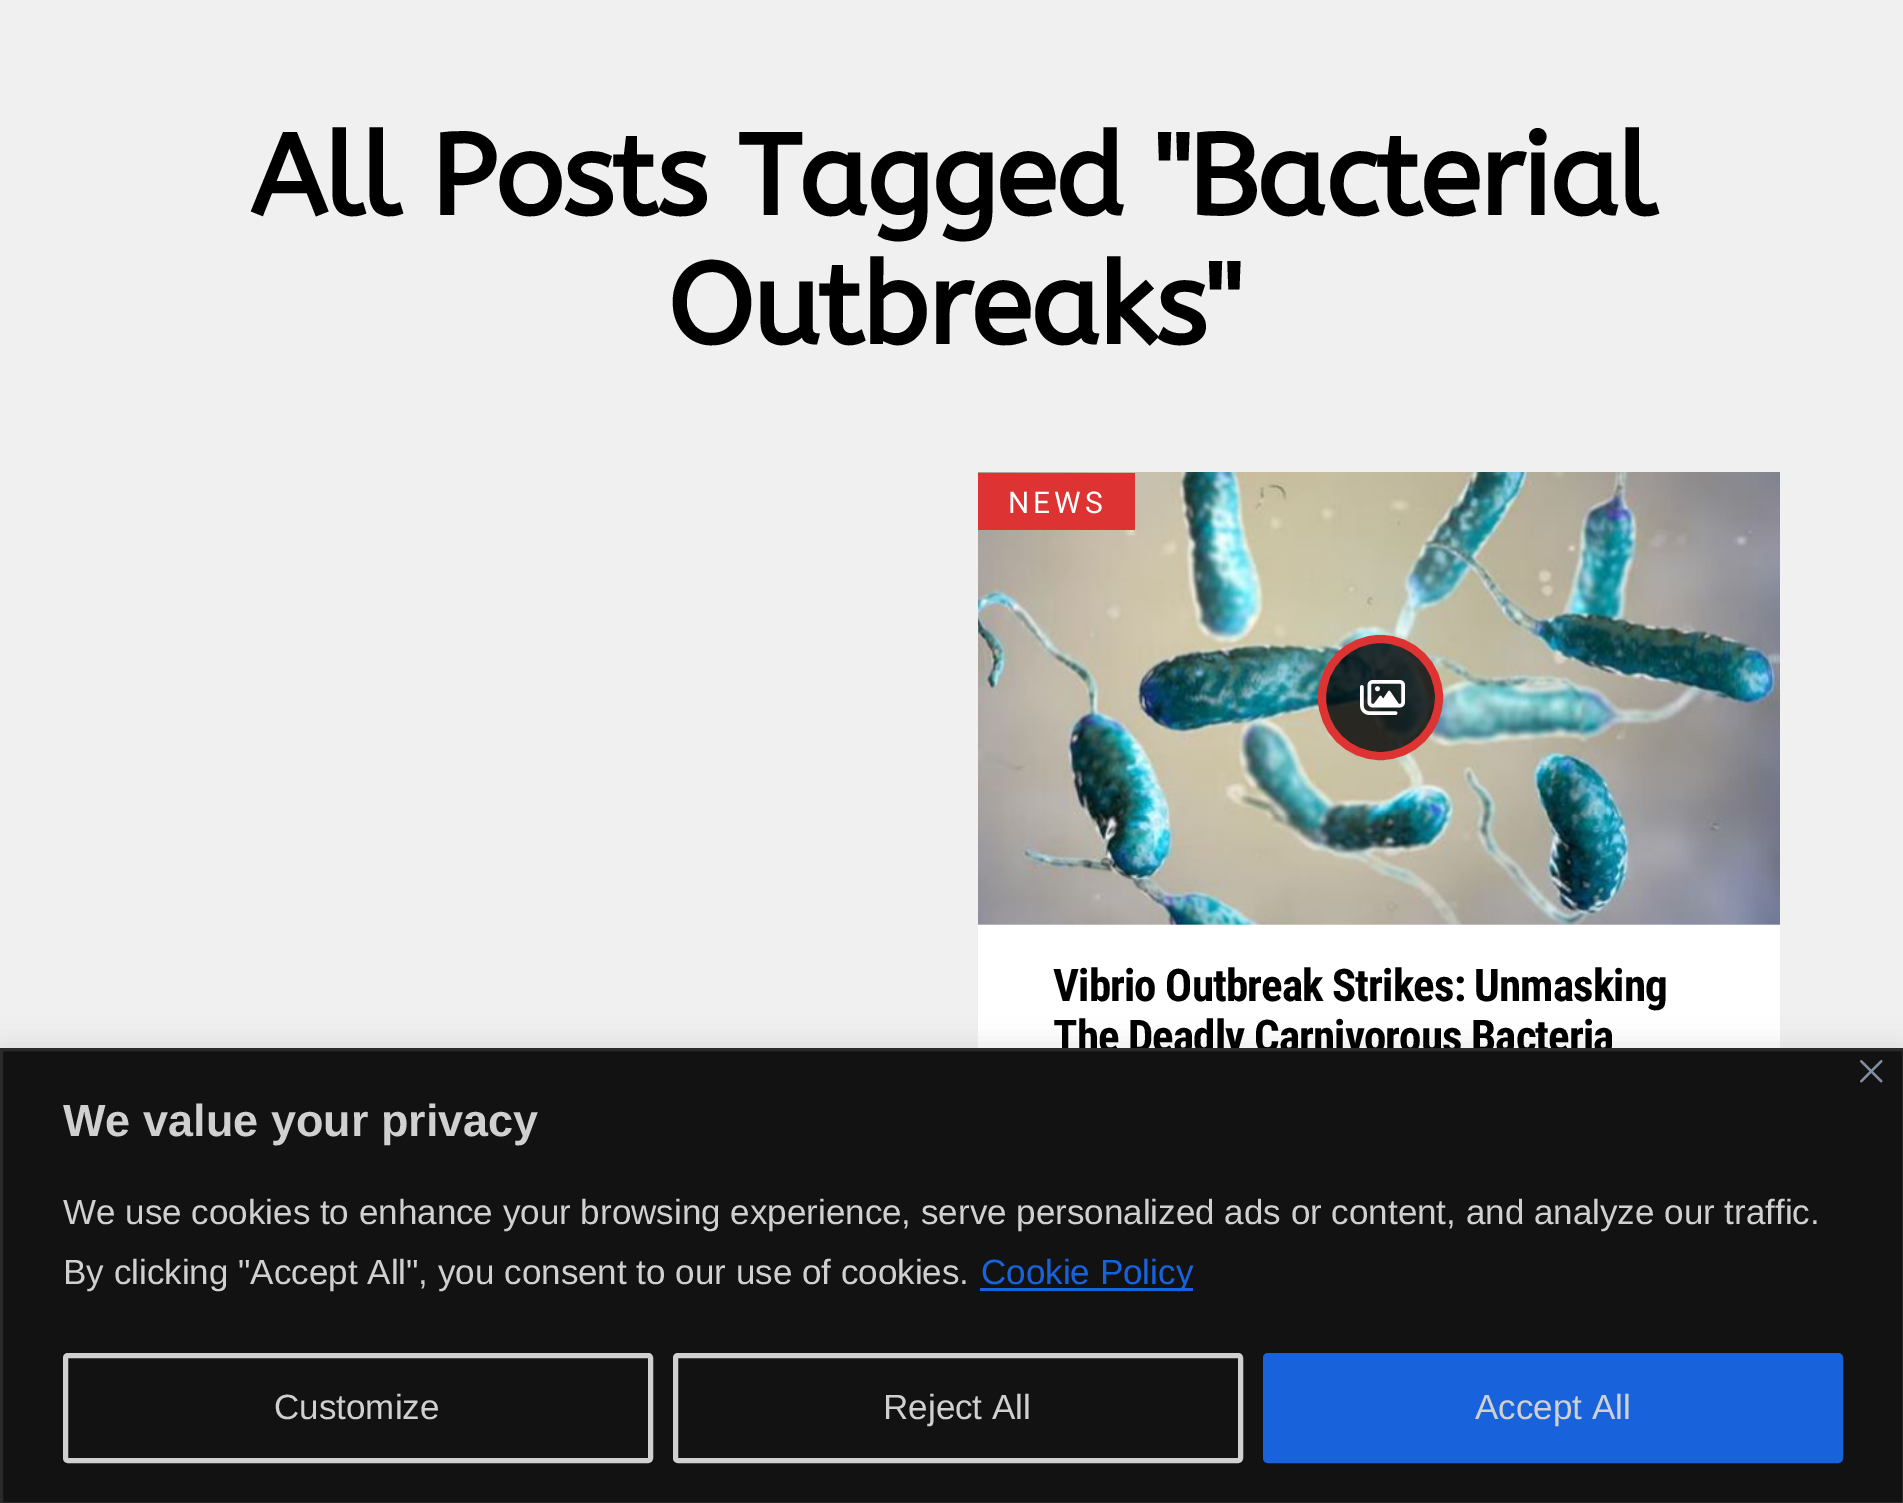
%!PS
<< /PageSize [1903 1503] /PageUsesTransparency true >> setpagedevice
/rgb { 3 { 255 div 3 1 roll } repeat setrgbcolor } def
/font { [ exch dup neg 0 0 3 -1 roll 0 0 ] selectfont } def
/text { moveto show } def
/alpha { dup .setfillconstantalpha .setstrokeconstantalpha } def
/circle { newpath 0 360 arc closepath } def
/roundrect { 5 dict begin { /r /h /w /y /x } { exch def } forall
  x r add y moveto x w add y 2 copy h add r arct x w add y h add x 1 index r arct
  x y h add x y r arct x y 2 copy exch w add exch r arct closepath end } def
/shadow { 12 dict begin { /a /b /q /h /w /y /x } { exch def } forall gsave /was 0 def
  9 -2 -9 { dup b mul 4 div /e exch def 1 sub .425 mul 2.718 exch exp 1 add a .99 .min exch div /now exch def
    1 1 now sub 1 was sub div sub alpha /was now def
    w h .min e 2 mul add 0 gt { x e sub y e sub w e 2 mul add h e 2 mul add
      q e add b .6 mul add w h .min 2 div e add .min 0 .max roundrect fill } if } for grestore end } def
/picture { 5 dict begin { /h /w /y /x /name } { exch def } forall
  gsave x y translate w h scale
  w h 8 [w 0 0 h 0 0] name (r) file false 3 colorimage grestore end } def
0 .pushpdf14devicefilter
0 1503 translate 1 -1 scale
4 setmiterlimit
240 240 240 rgb
0 0 1903 1503 rectfill
255 255 255 rgb
978 924 802 124 rectfill
(img_01.rgb) 978 472 802 453 picture
0.8 alpha
0 0 0 rgb
1380.5 697.5 58.5 circle fill
1 alpha
221 51 51 rgb
8 setlinewidth
1380.5 697.5 58.5 circle stroke
(img_02.rgb) 1360 680 45 35 picture
978 473 157 57 rectfill
172 171 171 rgb
0 1045 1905 458 0 12.5 0.3 shadow
/ABeeZee-Bold 114.25 font
0 0 0 rgb
250 215 moveto -2.3 0 (All Posts Tagged "Bacterial) ashow
667 344 moveto -2.3 0 (Outbreaks") ashow
/Roboto-Regular 30 font
255 255 255 rgb
1008 513 moveto 4 0 (NEWS) ashow
/RobotoCondensed-Bold 45 font
0 0 0 rgb
1053 1001 moveto -0.9 0 (Vibrio Outbreak Strikes: Unmasking) ashow
1053 1052 moveto -0.9 0 (The Deadly Carnivorous Bacteria) ashow
18 18 18 rgb
1.5 1049.5 moveto 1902 0 rlineto 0 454 rlineto -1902 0 rlineto closepath gsave fill grestore
42 42 42 rgb
3 setlinewidth
stroke
(img_03.rgb) 1860 1060 23 23 picture
/LiberationSans-Bold 45 font
208 208 208 rgb
(We value your privacy) 63 1136 text
/LiberationSans-Regular 35 font
(We use cookies to enhance your browsing experience, serve personalized ads or content, and analyze our traffic.) 63 1224 text
(By clicking "Accept All", you consent to our use of cookies.) 63 1284 text
24 99 220 rgb
980 1288 213 3 rectfill
(Cookie Policy) 981 1284 text
208 208 208 rgb
5 setlinewidth
65.5 1355.5 585 105 2.5 roundrect stroke
(Customize) 274 1419 text
675.5 1355.5 565 105 2.5 roundrect stroke
(Reject All) 883 1419 text
24 99 220 rgb
1265.5 1355.5 575 105 2.5 roundrect gsave fill grestore
stroke
208 208 208 rgb
(Accept All) 1475 1419 text
.poppdf14devicefilter showpage
